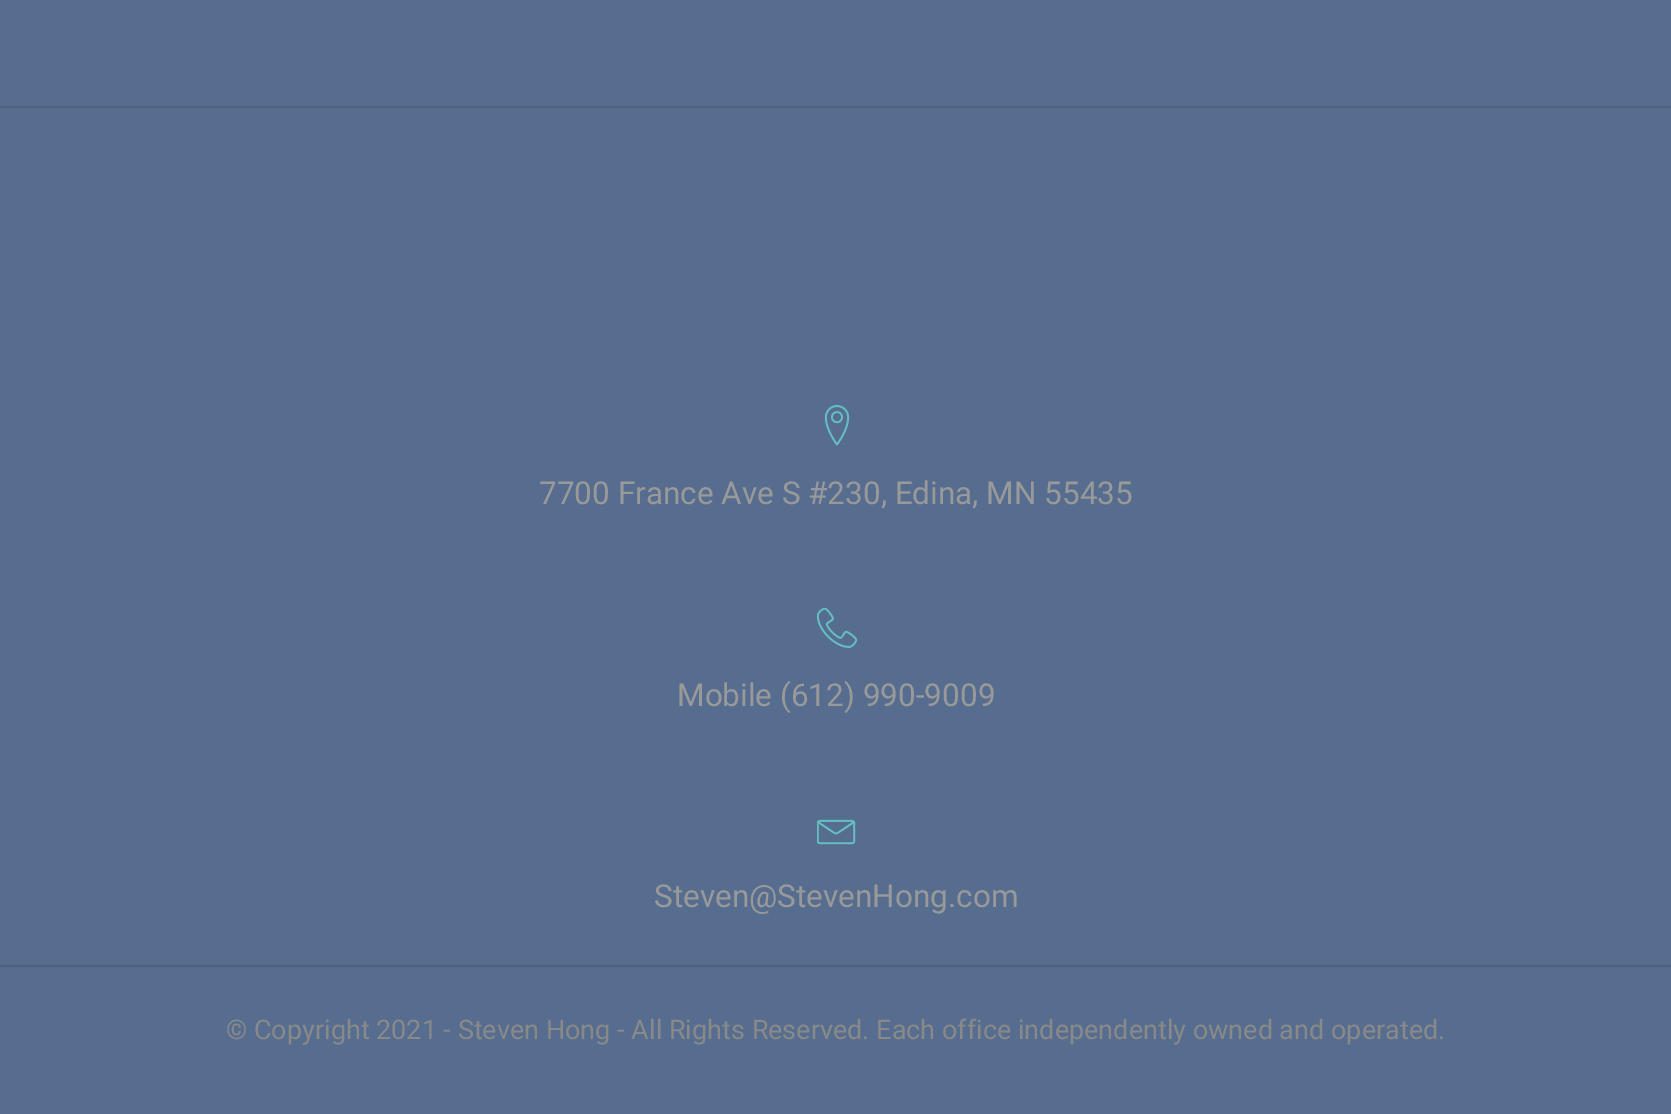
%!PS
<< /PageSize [1671 1114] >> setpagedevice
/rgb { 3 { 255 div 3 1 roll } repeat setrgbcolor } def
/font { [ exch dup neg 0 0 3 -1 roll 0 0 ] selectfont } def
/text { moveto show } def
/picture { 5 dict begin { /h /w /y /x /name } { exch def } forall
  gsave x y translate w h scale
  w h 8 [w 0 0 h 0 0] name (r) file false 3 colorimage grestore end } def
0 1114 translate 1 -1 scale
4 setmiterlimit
86 109 143 rgb
0 0 1671 1114 rectfill
77 98 129 rgb
0 106 1671 2 rectfill
0 965 1671 2 rectfill
(img_01.rgb) 824 405 26 41 picture
(img_02.rgb) 817 608 40 40 picture
(img_03.rgb) 817 819 39 26 picture
/Roboto-Regular 31.5 font
153 153 153 rgb
(7700 France Ave S #230, Edina, MN 55435) 539 504 text
(Mobile \(612\) 990-9009) 677 706 text
(Steven@StevenHong.com) 654 907 text
/Roboto-Regular 27 font
137 137 137 rgb
(© Copyright 2021 - Steven Hong - All Rights Reserved. Each office independently owned and operated.) 226 1039 text
showpage
